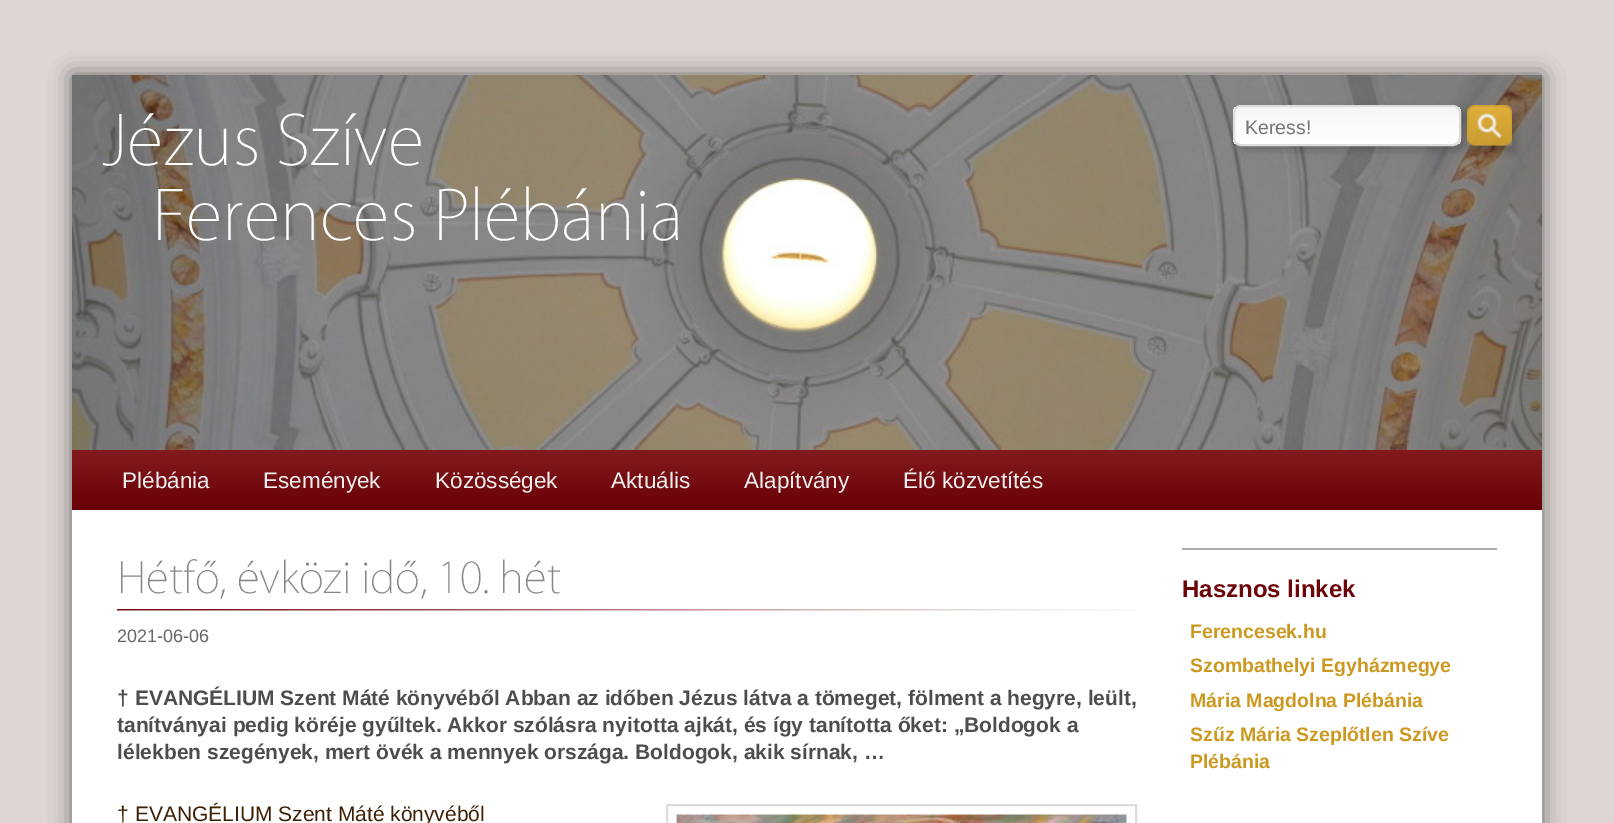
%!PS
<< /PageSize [1614 823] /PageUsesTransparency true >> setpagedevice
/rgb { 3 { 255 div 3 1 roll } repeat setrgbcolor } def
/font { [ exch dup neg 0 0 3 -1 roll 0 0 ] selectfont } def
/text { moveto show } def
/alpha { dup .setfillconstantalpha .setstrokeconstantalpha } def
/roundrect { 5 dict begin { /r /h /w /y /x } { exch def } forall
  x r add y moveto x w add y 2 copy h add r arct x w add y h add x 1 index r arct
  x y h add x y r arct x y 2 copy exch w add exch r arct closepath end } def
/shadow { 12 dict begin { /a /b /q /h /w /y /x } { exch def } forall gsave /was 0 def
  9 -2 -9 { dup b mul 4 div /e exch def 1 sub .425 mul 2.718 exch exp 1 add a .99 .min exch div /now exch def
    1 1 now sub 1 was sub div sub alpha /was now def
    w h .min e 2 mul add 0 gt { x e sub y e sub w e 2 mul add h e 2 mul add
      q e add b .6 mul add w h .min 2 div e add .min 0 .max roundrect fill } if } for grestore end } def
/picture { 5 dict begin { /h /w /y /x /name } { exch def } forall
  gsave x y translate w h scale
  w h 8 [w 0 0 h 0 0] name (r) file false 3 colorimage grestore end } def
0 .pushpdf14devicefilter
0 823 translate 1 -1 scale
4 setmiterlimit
223 214 211 rgb
0 0 1614 823 rectfill
102 102 102 rgb
72 75 1470 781 0 11 1 shadow
255 255 255 rgb
72 510 1470 313 rectfill
(img_01.rgb) 72 75 1470 375 picture
0 0 0 rgb
1238 110 228 40 8 4 0.2 shadow
gsave
1233 105 228 41 8 roundrect clip newpath
gsave 1233 107 moveto 228 0 rlineto 0 37 rlineto -228 0 rlineto closepath clip newpath
<< /ShadingType 2 /ColorSpace /DeviceRGB /Coords [1347 106 1347 144] /Extend [true true] /Function << /FunctionType 2 /Domain [0 1] /C0 [0.969 0.969 0.969] /C1 [1 1 1] /N 1 >> >> shfill grestore
grestore
221 221 221 rgb
2 setlinewidth
1234 106 226 39 7 roundrect stroke
gsave
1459 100 moveto 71 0 rlineto 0 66 rlineto -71 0 rlineto closepath 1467 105 moveto 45 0 rlineto 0 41 rlineto -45 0 rlineto closepath eoclip newpath
0 0 0 rgb
1472 113 45 40 0 4 0.18 shadow
grestore
(img_02.rgb) 1467 105 45 41 picture
gsave 72 450 moveto 1470 0 rlineto 0 60 rlineto -1470 0 rlineto closepath clip newpath
<< /ShadingType 2 /ColorSpace /DeviceRGB /Coords [807 450 807 510] /Extend [true true] /Function << /FunctionType 2 /Domain [0 1] /C0 [0.514 0.102 0.118] /C1 [0.412 0 0.02] /N 1 >> >> shfill grestore
(img_03.rgb) 117 609 1020 2 picture
667 805 469 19 rectstroke
(img_04.rgb) 676 814 451 9 picture
170 170 170 rgb
1182 548 315 2 rectfill
/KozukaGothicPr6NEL-ExtraLight 67.5 font
255 255 255 rgb
(Jézus Szíve) 102 165 text
(Ferences Plébánia) 152 240 text
/LiberationSans-Regular 19.5 font
117 117 117 rgb
(Keress!) 1245 134 text
/LiberationSans-Regular 22.5 font
238 238 238 rgb
(Plébánia) 122 488 text
(Események) 263 488 text
(Közösségek) 435 488 text
(Aktuális) 611 488 text
(Alapítvány) 744 488 text
(Élő közvetítés) 903 488 text
/KozukaGothicPr6NEL-ExtraLight 42 font
135 134 134 rgb
(Hétfő, évközi idő, 10. hét) 117 593 text
/LiberationSans-Regular 18 font
102 102 102 rgb
(2021-06-06) 117 642 text
/LiberationSans-Bold 21 font
77 77 77 rgb
(† EVANGÉLIUM Szent Máté könyvéből Abban az időben Jézus látva a tömeget, fölment a hegyre, leült,) 117 705 text
(tanítványai pedig köréje gyűltek. Akkor szólásra nyitotta ajkát, és így tanította őket: „Boldogok a) 117 732 text
(lélekben szegények, mert övék a mennyek országa. Boldogok, akik sírnak, …) 117 759 text
/LiberationSans-Regular 21 font
61 32 5 rgb
(† EVANGÉLIUM Szent Máté könyvéből) 117 821 text
/LiberationSans-Bold 24 font
109 4 8 rgb
(Hasznos linkek) 1182 597 text
/LiberationSans-Bold 19.5 font
204 153 32 rgb
(Ferencesek.hu) 1190 638 text
(Szombathelyi Egyházmegye) 1190 672 text
(Mária Magdolna Plébánia) 1190 707 text
(Szűz Mária Szeplőtlen Szíve) 1190 741 text
(Plébánia) 1190 768 text
.poppdf14devicefilter showpage
